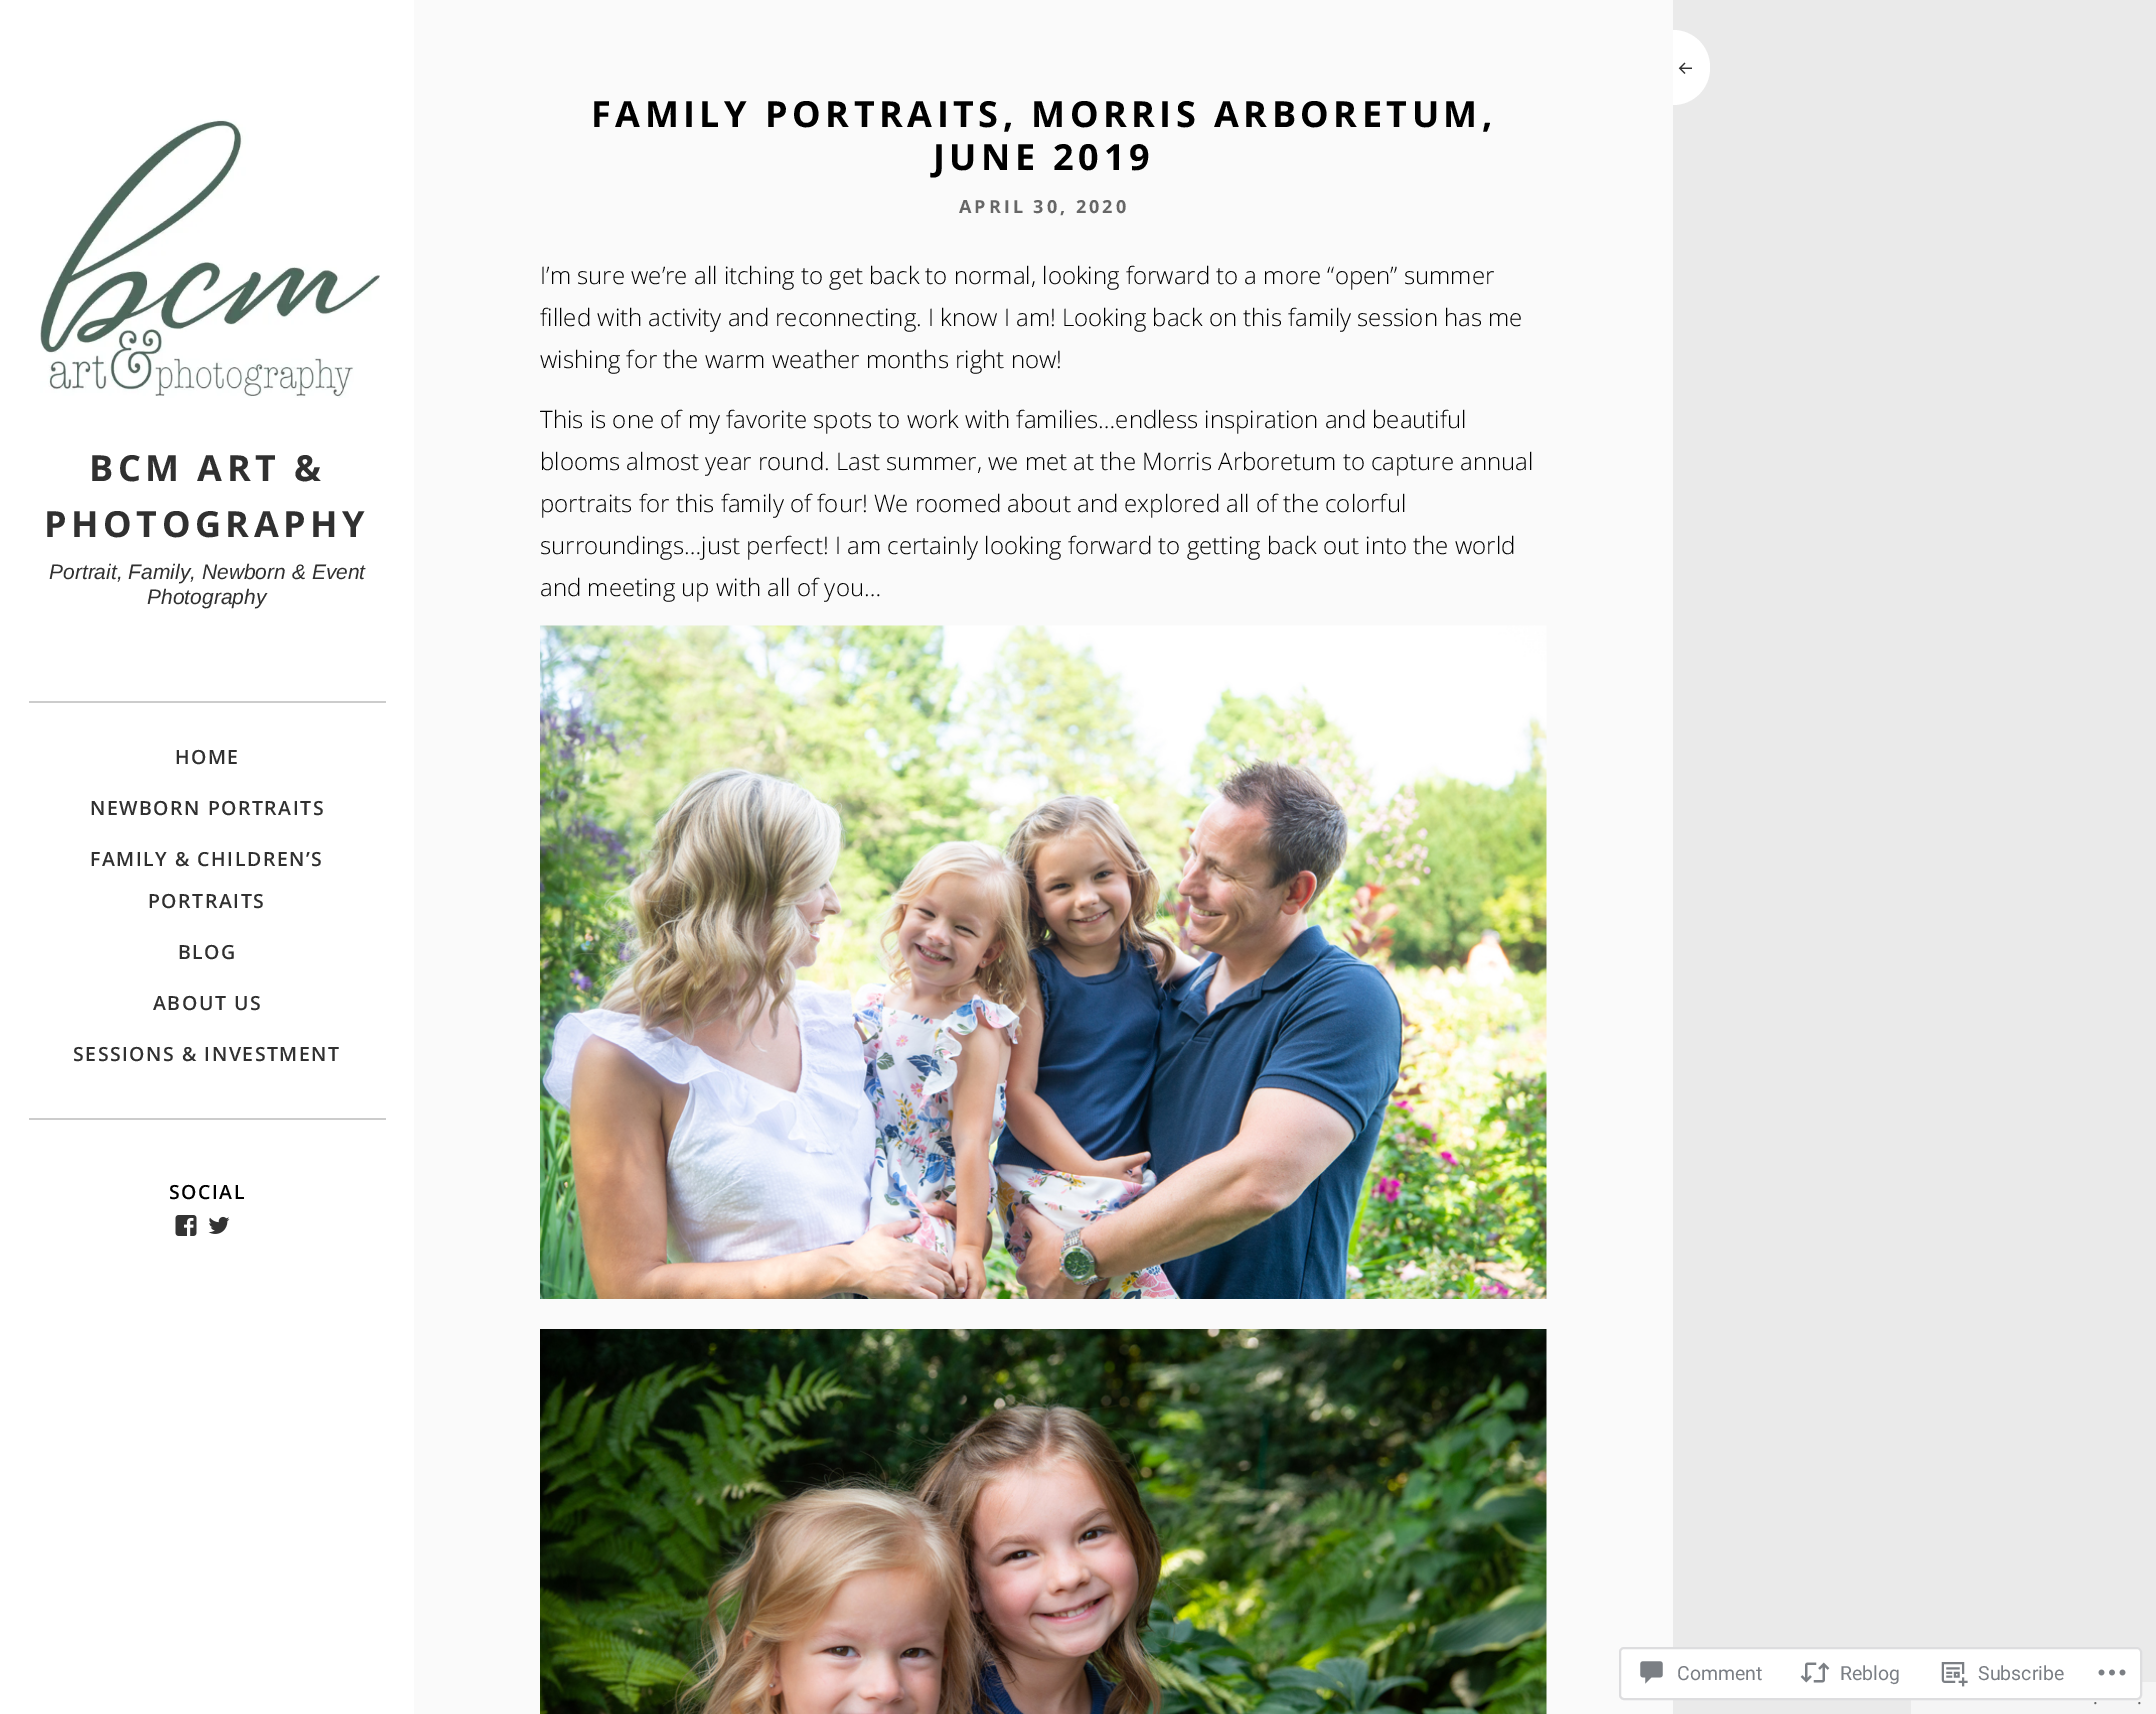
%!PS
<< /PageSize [2156 1714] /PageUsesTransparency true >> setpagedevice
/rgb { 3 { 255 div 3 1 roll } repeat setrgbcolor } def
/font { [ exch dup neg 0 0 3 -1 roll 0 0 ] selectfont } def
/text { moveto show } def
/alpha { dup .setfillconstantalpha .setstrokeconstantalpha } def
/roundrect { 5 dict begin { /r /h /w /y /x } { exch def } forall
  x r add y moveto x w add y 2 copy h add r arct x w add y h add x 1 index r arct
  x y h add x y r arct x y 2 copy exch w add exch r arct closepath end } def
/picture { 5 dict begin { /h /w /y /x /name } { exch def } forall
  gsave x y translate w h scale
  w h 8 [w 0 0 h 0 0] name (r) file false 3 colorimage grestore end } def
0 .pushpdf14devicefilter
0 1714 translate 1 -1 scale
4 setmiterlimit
234 234 234 rgb
0 0 2156 1714 rectfill
255 255 255 rgb
1673 30 moveto 20.5 0 37 16.5 37 37 rcurveto 0 1 rlineto 0 20.5 -16.5 37 -37 37 rcurveto closepath fill
(img_01.rgb) 1678 62 14 12 picture
250 250 250 rgb
414 0 1259 1714 rectfill
(img_02.rgb) 540 625 1007 674 picture
(img_03.rgb) 540 1329 1007 385 picture
255 255 255 rgb
0 0 414 1714 rectfill
(img_04.rgb) 40 119 340 279 picture
204 204 204 rgb
29 701 357 2 rectfill
29 1118 357 2 rectfill
(img_05.rgb) 175 1215 22 21 picture
(img_06.rgb) 208 1216 22 18 picture
245 245 245 rgb
1911 1682 245 32 rectfill
0.98 alpha
255 255 255 rgb
1619 1647 523 53 5 roundrect fill
220 220 222 rgb
2 setlinewidth
1620 1648 521 51 4 roundrect stroke
1 alpha
(img_07.rgb) 1640 1661 23 23 picture
(img_08.rgb) 1800 1662 30 21 picture
(img_09.rgb) 1941 1662 27 25 picture
(img_10.rgb) 2098 1669 28 7 picture
/OpenSans-Bold 36 font
0 0 0 rgb
591 127 moveto 4.5 0 (FAMILY PORTRAITS, MORRIS ARBORETUM,) ashow
933 170 moveto 4.5 0 (JUNE 2019) ashow
/OpenSans-Bold 18 font
102 102 102 rgb
959 213 moveto 3 0 (APRIL 30, 2020) ashow
/OpenSans-Light 24 font
0 0 0 rgb
(I’m sure we’re all itching to get back to normal, looking forward to a more “open” summer) 540 284 text
(filled with activity and reconnecting. I know I am! Looking back on this family session has me) 540 326 text
(wishing for the warm weather months right now!) 540 368 text
(This is one of my favorite spots to work with families…endless inspiration and beautiful) 540 428 text
(blooms almost year round. Last summer, we met at the Morris Arboretum to capture annual) 540 470 text
(portraits for this family of four! We roomed about and explored all of the colorful) 540 512 text
(surroundings…just perfect! I am certainly looking forward to getting back out into the world) 540 554 text
(and meeting up with all of you…) 540 596 text
/OpenSans-Bold 36 font
48 48 48 rgb
89 481 moveto 4.5 0 (BCM ART &) ashow
44 537 moveto 4.5 0 (PHOTOGRAPHY) ashow
/LiberationSans-Italic 21 font
(Portrait, Family, Newborn & Event) 49 579 text
(Photography) 147 604 text
/OpenSans-SemiBold 19.5 font
175 764 moveto 1.5 0 (HOME) ashow
90 815 moveto 1.5 0 (NEWBORN PORTRAITS) ashow
90 866 moveto 1.5 0 (FAMILY & CHILDREN’S) ashow
148 908 moveto 1.5 0 (PORTRAITS) ashow
178 959 moveto 1.5 0 (BLOG) ashow
153 1010 moveto 1.5 0 (ABOUT US) ashow
73 1061 moveto 1.5 0 (SESSIONS & INVESTMENT) ashow
0 0 0 rgb
169 1199 moveto 1.5 0 (SOCIAL) ashow
/Roboto-Regular 19.5 font
122 126 132 rgb
(Comment) 1677 1680 text
(Reblog) 1840 1680 text
(Subscribe) 1978 1680 text
/OpenSans-Regular 18 font
102 102 102 rgb
2093 1704 moveto 1 0 (.) ashow
2137 1704 moveto 1 0 (.) ashow
.poppdf14devicefilter showpage
